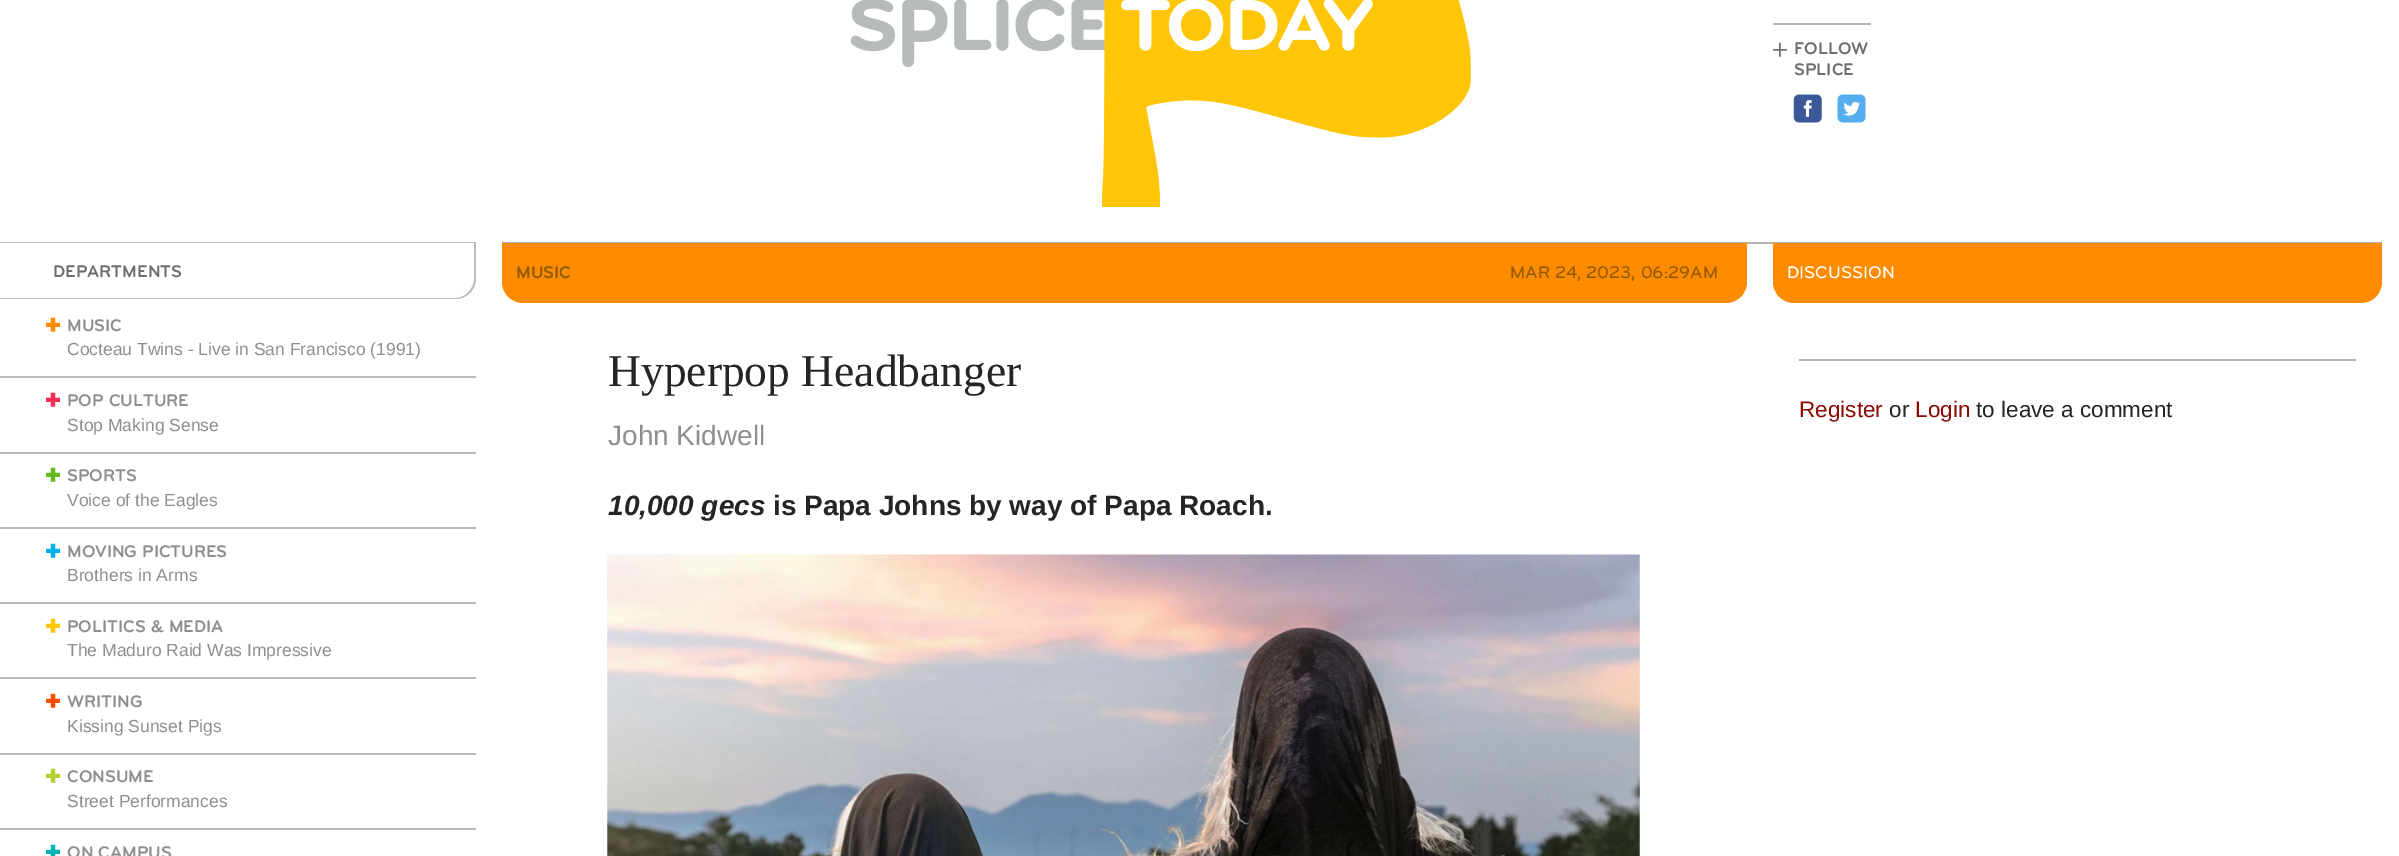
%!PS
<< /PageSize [2399 856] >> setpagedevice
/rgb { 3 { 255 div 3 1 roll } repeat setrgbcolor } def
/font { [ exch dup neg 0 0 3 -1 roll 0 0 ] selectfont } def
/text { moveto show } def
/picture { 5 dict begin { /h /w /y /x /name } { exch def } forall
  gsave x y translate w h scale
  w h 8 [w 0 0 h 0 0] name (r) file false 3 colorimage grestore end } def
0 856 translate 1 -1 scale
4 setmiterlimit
255 255 255 rgb
0 0 2399 856 rectfill
(img_01.rgb) 850 0 621 207 picture
179 179 179 rgb
1773 23 98 2 rectfill
(img_02.rgb) 1793 94 29 29 picture
(img_03.rgb) 1837 94 29 29 picture
187 187 187 rgb
0 242 moveto 476 0 rlineto 0 36 rlineto 0 12 -9 21 -21 21 rcurveto -455 0 rlineto closepath 0 243 moveto 474 0 rlineto 0 35 rlineto 0 11 -8 20 -19 20 rcurveto -455 0 rlineto closepath eofill
0 376 476 2 rectfill
0 452 476 2 rectfill
0 527 476 2 rectfill
0 602 476 2 rectfill
0 677 476 2 rectfill
0 753 476 2 rectfill
0 828 476 2 rectfill
179 179 179 rgb
502 242 1880 2 rectfill
255 139 0 rgb
502 243 moveto 1245 0 rlineto 0 39 rlineto 0 11.5 -9.5 21 -21 21 rcurveto -1203 0 rlineto -11.5 0 -21 -9.5 -21 -21 rcurveto closepath fill
(img_04.rgb) 607 554 1033 302 picture
1773 243 moveto 609 0 rlineto 0 39 rlineto 0 11.5 -9.5 21 -21 21 rcurveto -567 0 rlineto -11.5 0 -21 -9.5 -21 -21 rcurveto closepath fill
179 179 179 rgb
1799 359 557 2 rectfill
/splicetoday-Regular 14 font
109 109 109 rgb
(✛) 1773 56 text
/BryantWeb-Bold 17.5 font
(FOLLOW) 1794 54 text
(SPLICE) 1794 75 text
(DEPARTMENTS) 53 277 text
/splicetoday-Regular 14 font
255 139 0 rgb
(✚) 46 331 text
/BryantWeb-Bold 17.5 font
142 142 142 rgb
(MUSIC) 67 331 text
/LiberationSans-Regular 17.5 font
(Cocteau Twins - Live in San Francisco \(1991\)) 67 355 text
/splicetoday-Regular 14 font
246 46 84 rgb
(✚) 46 406 text
/BryantWeb-Bold 17.5 font
142 142 142 rgb
(POP CULTURE) 67 406 text
/LiberationSans-Regular 17.5 font
(Stop Making Sense) 67 431 text
/splicetoday-Regular 14 font
101 184 34 rgb
(✚) 46 481 text
/BryantWeb-Bold 17.5 font
142 142 142 rgb
(SPORTS) 67 481 text
/LiberationSans-Regular 17.5 font
(Voice of the Eagles) 67 506 text
/splicetoday-Regular 14 font
0 179 240 rgb
(✚) 46 557 text
/BryantWeb-Bold 17.5 font
142 142 142 rgb
(MOVING PICTURES) 67 557 text
/LiberationSans-Regular 17.5 font
(Brothers in Arms) 67 581 text
/splicetoday-Regular 14 font
255 198 8 rgb
(✚) 46 632 text
/BryantWeb-Bold 17.5 font
142 142 142 rgb
(POLITICS & MEDIA) 67 632 text
/LiberationSans-Regular 17.5 font
(The Maduro Raid Was Impressive) 67 656 text
/splicetoday-Regular 14 font
254 77 0 rgb
(✚) 46 707 text
/BryantWeb-Bold 17.5 font
142 142 142 rgb
(WRITING) 67 707 text
/LiberationSans-Regular 17.5 font
(Kissing Sunset Pigs) 67 732 text
/splicetoday-Regular 14 font
178 210 52 rgb
(✚) 46 782 text
/BryantWeb-Bold 17.5 font
142 142 142 rgb
(CONSUME) 67 782 text
/LiberationSans-Regular 17.5 font
(Street Performances) 67 807 text
/splicetoday-Regular 14 font
0 179 181 rgb
(✚) 46 858 text
/BryantWeb-Bold 17.5 font
142 142 142 rgb
(ON CAMPUS) 67 858 text
144 90 0 rgb
(MUSIC) 516 278 text
/BryantWeb-Medium 17.5 font
(MAR 24, 2023, 06:29AM) 1510 278 text
/LiberationSerif-Regular 45.5 font
37 37 37 rgb
(Hyperpop Headbanger) 608 386 text
/LiberationSans-Regular 28 font
142 142 142 rgb
(John Kidwell) 608 445 text
/LiberationSans-BoldItalic 28 font
37 37 37 rgb
(10,000 gecs) 608 515 text
/LiberationSans-Bold 28 font
(is Papa Johns by way of Papa Roach.) 773 515 text
/BryantWeb-Medium 17.5 font
255 255 255 rgb
(DISCUSSION) 1787 278 text
/LiberationSans-Regular 22.5 font
140 8 1 rgb
(Register) 1799 417 text
37 37 37 rgb
(or) 1889 417 text
140 8 1 rgb
(Login) 1915 417 text
37 37 37 rgb
(to leave a comment) 1976 417 text
showpage
